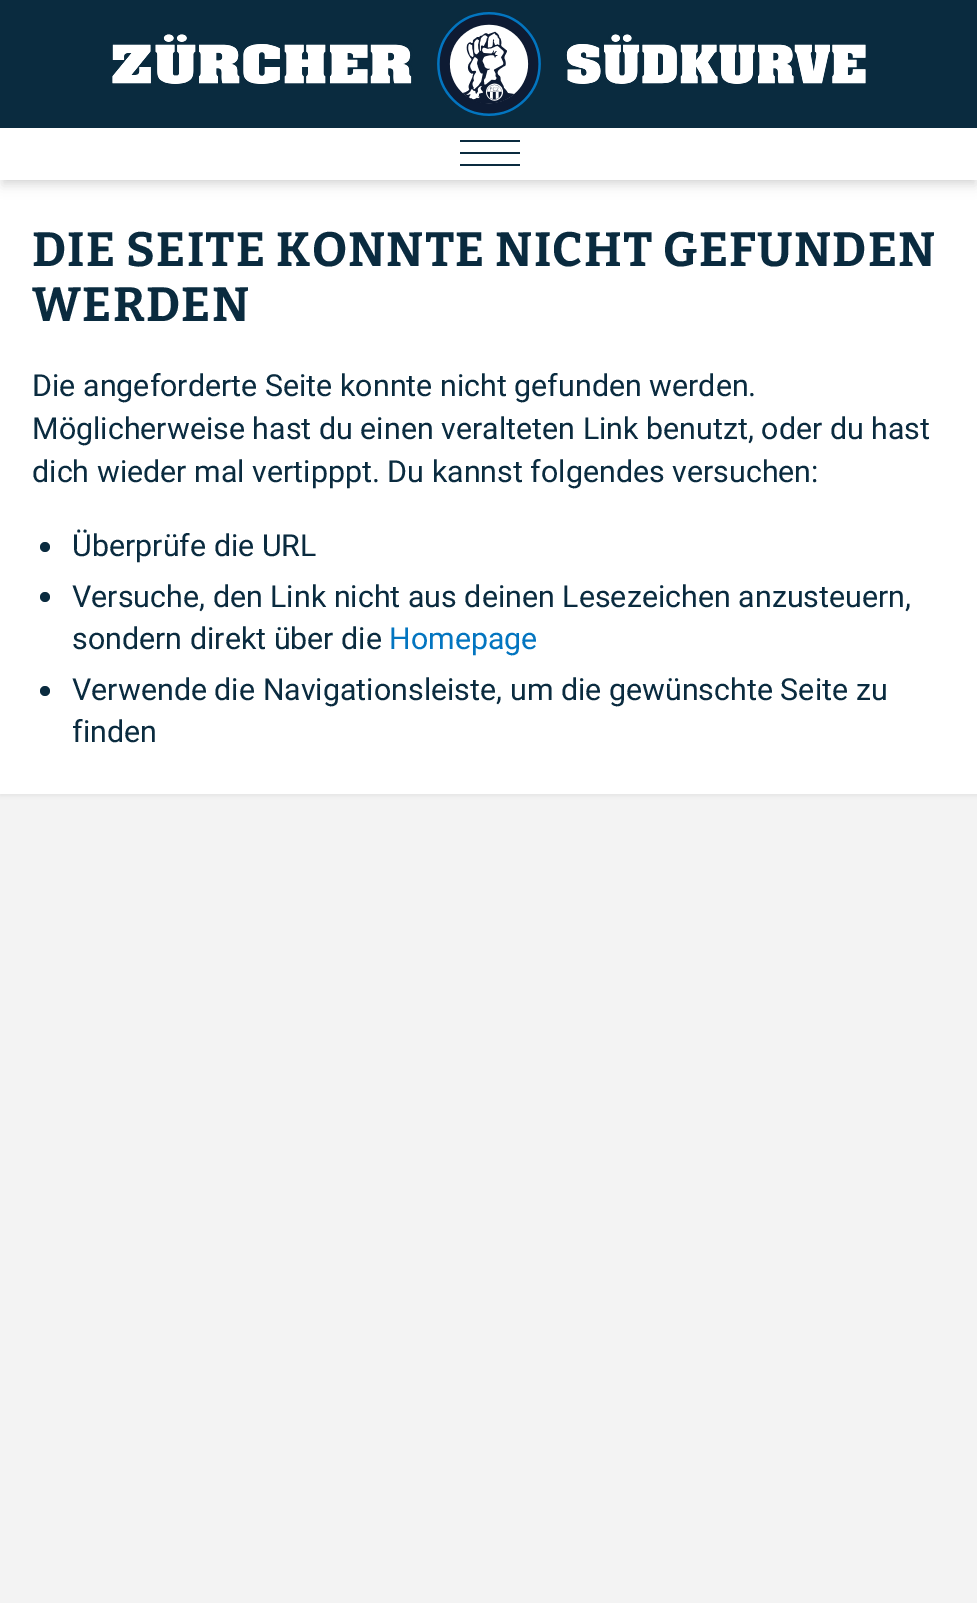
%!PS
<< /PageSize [977 1603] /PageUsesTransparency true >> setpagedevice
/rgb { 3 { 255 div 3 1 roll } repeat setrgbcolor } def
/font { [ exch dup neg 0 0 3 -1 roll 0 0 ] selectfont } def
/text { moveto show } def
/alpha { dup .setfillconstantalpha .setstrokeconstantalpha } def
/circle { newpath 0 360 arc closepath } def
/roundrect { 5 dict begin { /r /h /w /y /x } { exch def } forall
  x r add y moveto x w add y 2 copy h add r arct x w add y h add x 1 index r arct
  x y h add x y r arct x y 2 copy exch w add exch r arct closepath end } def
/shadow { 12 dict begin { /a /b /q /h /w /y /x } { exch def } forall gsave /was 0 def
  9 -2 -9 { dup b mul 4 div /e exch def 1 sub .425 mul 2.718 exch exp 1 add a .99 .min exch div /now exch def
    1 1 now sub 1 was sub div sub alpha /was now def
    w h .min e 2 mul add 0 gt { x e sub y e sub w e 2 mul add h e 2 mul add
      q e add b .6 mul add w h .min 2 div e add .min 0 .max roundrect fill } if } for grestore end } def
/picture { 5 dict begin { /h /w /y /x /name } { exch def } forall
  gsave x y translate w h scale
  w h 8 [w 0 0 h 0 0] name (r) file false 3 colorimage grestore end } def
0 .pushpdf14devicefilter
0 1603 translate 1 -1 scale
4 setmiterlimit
243 243 243 rgb
0 0 977 1603 rectfill
0 0 0 rgb
0 178 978 618 0 2 0.05 shadow
255 255 255 rgb
0 180 977 614 rectfill
0 0 0 rgb
4 8 970 172 0 4 0.1 shadow
2 10 974 176 0 6 0.1 shadow
10 43 63 rgb
0 0 977 128 rectfill
(img_01.rgb) 112 12 754 104 picture
255 255 255 rgb
0 128 977 52 rectfill
10 43 63 rgb
460 140 60 2 rectfill
460 152 60 2 rectfill
460 164 60 2 rectfill
45 547 5 circle fill
45 597 5 circle fill
45 691 5 circle fill
/Bitter-Thin 48 font
32 266 moveto 1.2 0 (DIE SEITE KONNTE NICHT GEFUNDEN) ashow
32 321 moveto 1.2 0 (WERDEN) ashow
/Roboto-Regular 30.4 font
(Die angeforderte Seite konnte nicht gefunden werden.) 32 396 text
(Möglicherweise hast du einen veralteten Link benutzt, oder du hast) 32 439 text
(dich wieder mal vertipppt. Du kannst folgendes versuchen:) 32 482 text
(Überprüfe die URL) 72 556 text
(Versuche, den Link nicht aus deinen Lesezeichen anzusteuern,) 72 607 text
(sondern direkt über die) 72 649 text
3 117 192 rgb
(Homepage) 389 649 text
10 43 63 rgb
(Verwende die Navigationsleiste, um die gewünschte Seite zu) 72 700 text
(finden) 72 742 text
.poppdf14devicefilter showpage
